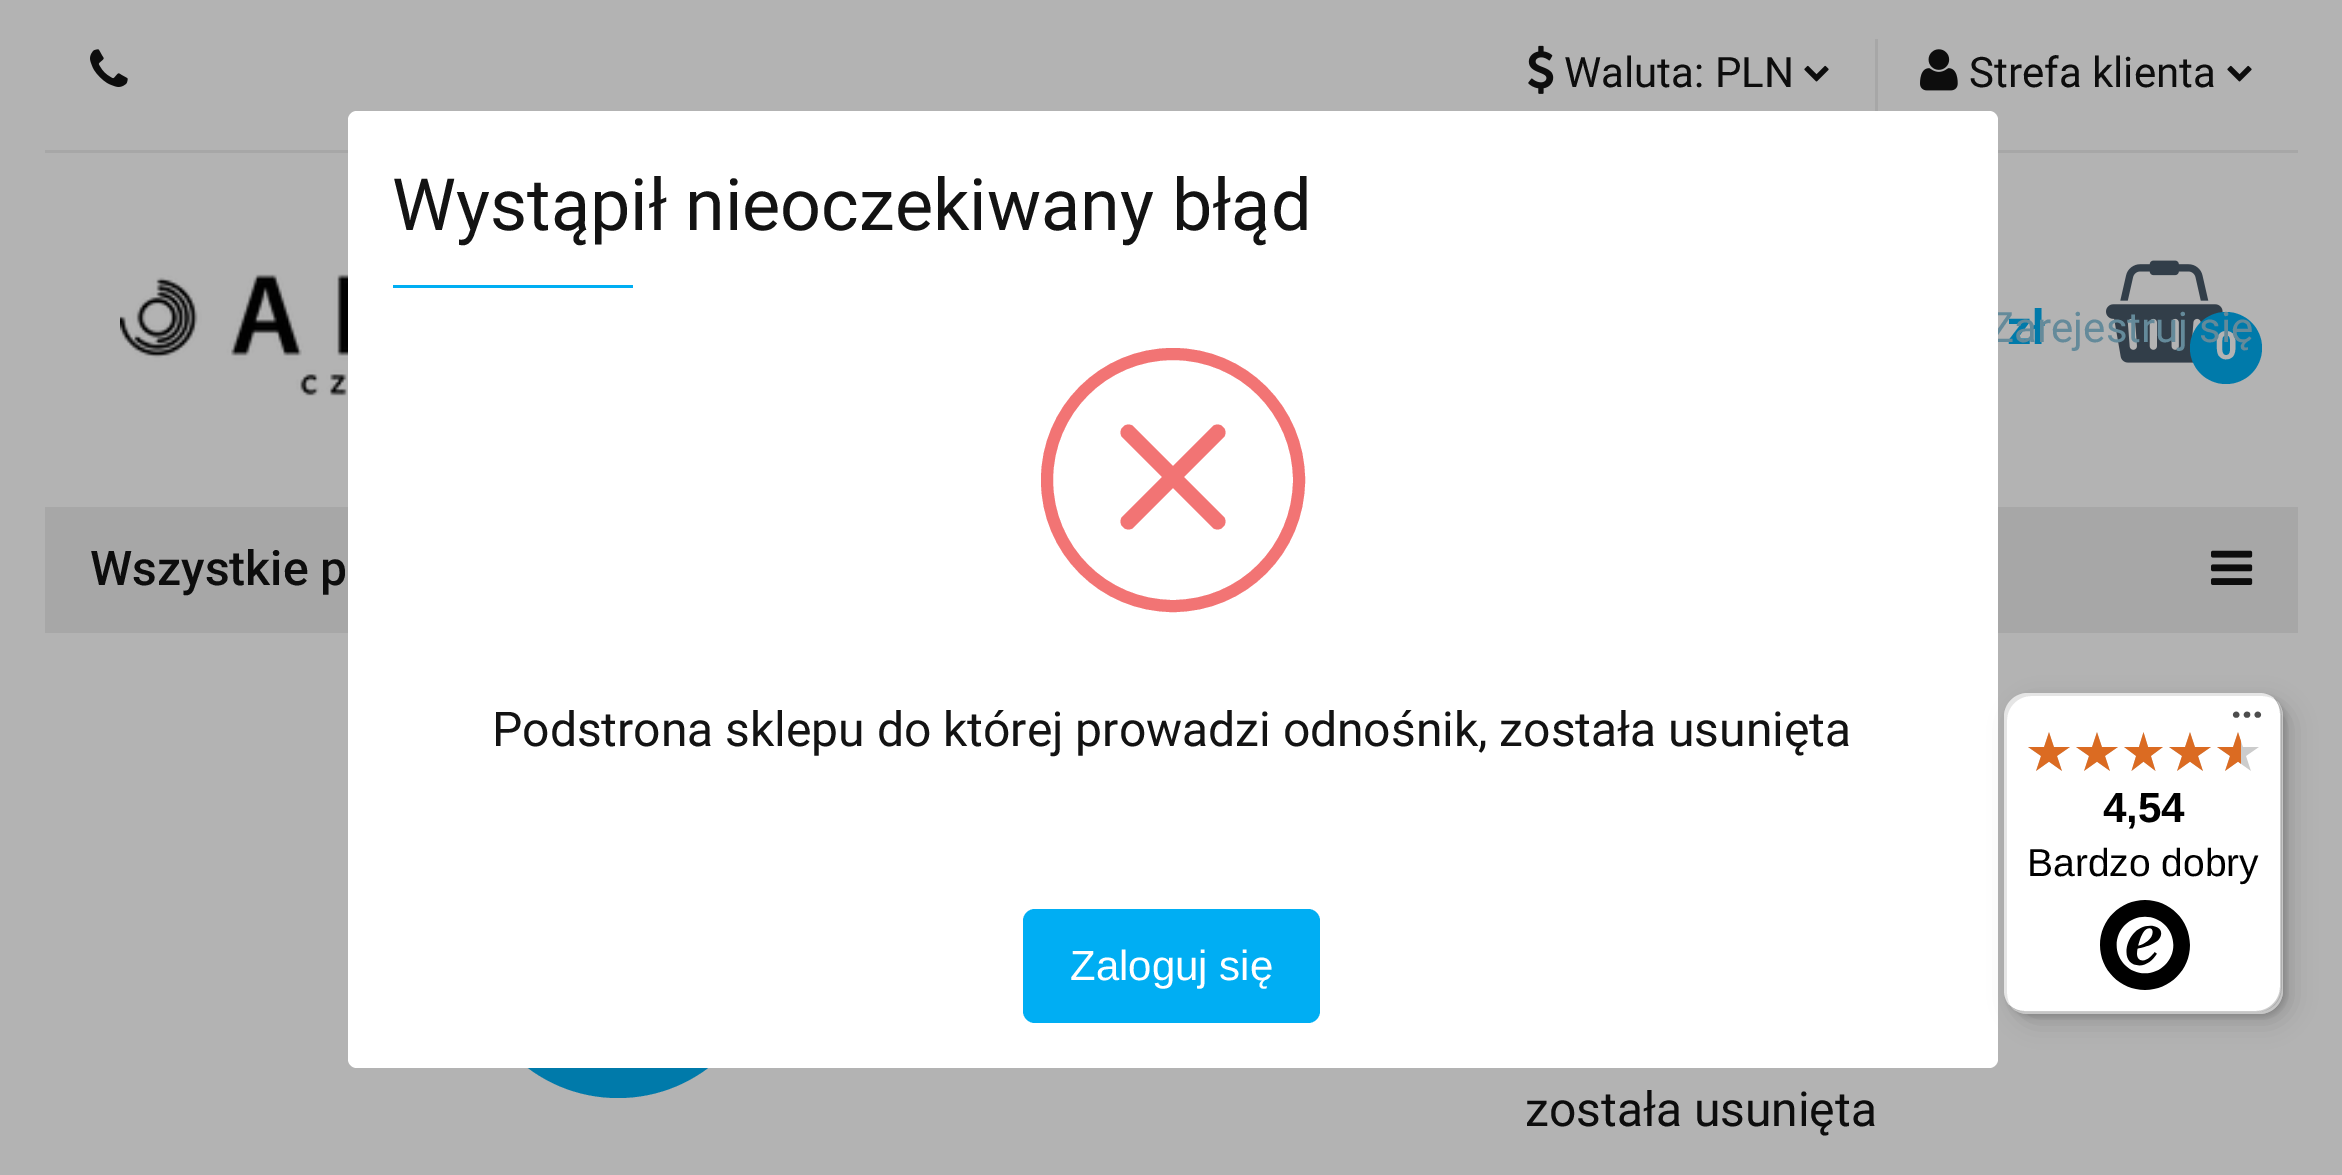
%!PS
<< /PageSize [2342 1175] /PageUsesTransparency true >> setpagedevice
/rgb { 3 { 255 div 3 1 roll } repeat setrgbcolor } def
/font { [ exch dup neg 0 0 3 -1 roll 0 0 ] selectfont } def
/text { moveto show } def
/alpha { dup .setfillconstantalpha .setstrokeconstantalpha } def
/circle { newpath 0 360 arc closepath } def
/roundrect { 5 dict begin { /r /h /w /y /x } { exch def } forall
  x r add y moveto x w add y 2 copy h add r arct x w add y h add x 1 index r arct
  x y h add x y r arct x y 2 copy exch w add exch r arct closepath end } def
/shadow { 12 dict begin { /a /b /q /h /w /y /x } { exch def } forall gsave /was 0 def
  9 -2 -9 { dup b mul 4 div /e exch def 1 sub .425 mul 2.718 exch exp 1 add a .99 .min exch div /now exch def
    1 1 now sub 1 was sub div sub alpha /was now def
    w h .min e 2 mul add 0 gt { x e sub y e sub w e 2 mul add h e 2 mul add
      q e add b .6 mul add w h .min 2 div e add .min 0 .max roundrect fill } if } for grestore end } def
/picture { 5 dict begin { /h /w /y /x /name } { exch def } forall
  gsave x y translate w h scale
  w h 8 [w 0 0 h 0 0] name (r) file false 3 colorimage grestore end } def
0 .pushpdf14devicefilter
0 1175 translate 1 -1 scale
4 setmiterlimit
179 179 179 rgb
0 0 2342 1175 rectfill
167 167 167 rgb
45 150 2253 3 rectfill
(img_01.rgb) 90 49 38 38 picture
(img_02.rgb) 1528 45 26 49 picture
(img_03.rgb) 1804 65 25 17 picture
1875 39 3 75 rectfill
(img_04.rgb) 1920 49 38 42 picture
(img_03.rgb) 2227 65 25 17 picture
(img_05.rgb) 120 274 228 122 picture
(img_06.rgb) 2106 260 117 103 picture
0 122 170 rgb
2226 348 36 circle fill
167 167 167 rgb
45 507 2253 126 rectfill
(img_07.rgb) 2211 550 42 35 picture
0 122 170 rgb
618 948 150 circle fill
/Roboto-Regular 42 font
13 13 13 rgb
(Waluta: PLN) 1564 87 text
(Strefa klienta) 1969 87 text
/Roboto-Bold 48 font
0 122 170 rgb
(zł) 2007 344 text
/Roboto-Bold 39 font
179 179 179 rgb
(0) 2215 359 text
/Roboto-Regular 42 font
100 138 154 rgb
(Zarejestruj się) 1989 342 text
/Roboto-Medium 48 font
13 13 13 rgb
(Wszystkie p) 90 585 text
/Roboto-Regular 48 font
(została usunięta) 1525 1126 text
255 255 255 rgb
348 111 1650 957 9 roundrect fill
/Roboto-Regular 72 font
19 19 19 rgb
(Wystąpił nieoczekiwany błąd) 392 230 text
0 174 243 rgb
393 285 240 3 rectfill
242 116 116 rgb
12 setlinewidth
1173 480 126 circle stroke
1133 426 moveto 91 91 rlineto 2 3 2 6 0 9 rcurveto -2 2 rlineto -3 2 -6 2 -9 0 rcurveto -91 -91 rlineto -2 -3 -2 -6 0 -9 rcurveto 2 -2 rlineto 3 -2 6 -2 9 0 rcurveto closepath fill
1122 517 moveto 91 -91 rlineto 3 -2 6 -2 9 0 rcurveto 2 2 rlineto 2 3 2 6 0 9 rcurveto -91 91 rlineto -3 2 -6 2 -9 0 rcurveto -2 -2 rlineto -2 -3 -2 -6 0 -9 rcurveto closepath fill
/Roboto-Regular 48 font
19 19 19 rgb
(Podstrona sklepu do której prowadzi odnośnik, została usunięta) 492 746 text
0 174 243 rgb
1023 909 297 114 12 roundrect fill
/LiberationSans-Regular 42 font
255 255 255 rgb
(Zaloguj się) 1070 980 text
0 0 0 rgb
2013 702 279 321 24 12 0.15 shadow
2007 696 279 321 24 3 0.15 shadow
255 255 255 rgb
2004 693 279 321 24 roundrect fill
0.1 alpha
0 0 0 rgb
2031 696 moveto 231 0 rlineto 6 0 12 2 16 6 rcurveto -5 -5 -11 -9 -19 -9 rcurveto -231 0 rlineto -13 0 -24 11 -24 24 rcurveto 0 273 rlineto 0 8 4 14 9 19 rcurveto -4 -4 -6 -10 -6 -16 rcurveto 0 -273 rlineto 0 -13 11 -24 24 -24 rcurveto closepath fill
0.2 alpha
2009 1005 moveto 5 5 11 9 19 9 rcurveto 231 0 rlineto 13 0 24 -11 24 -24 rcurveto 0 -273 rlineto 0 -8 -4 -14 -9 -19 rcurveto 4 4 6 10 6 16 rcurveto 0 273 rlineto 0 13 -11 24 -24 24 rcurveto -231 0 rlineto -6 0 -12 -2 -16 -6 rcurveto closepath fill
50 50 50 rgb
2009 1005 moveto 5 6 11 9 19 9 rcurveto 231 0 rlineto 13 0 24 -11 24 -24 rcurveto 0 -273 rlineto 0 -8 -3 -14 -9 -19 rcurveto 4 5 7 11 7 17 rcurveto 0 273 rlineto 0 13 -11 24 -24 24 rcurveto -231 0 rlineto -6 0 -12 -3 -17 -7 rcurveto closepath fill
0.3 alpha
255 255 255 rgb
2011 1007 moveto 4 4 10 7 17 7 rcurveto 231 0 rlineto 13 0 24 -11 24 -24 rcurveto 0 -273 rlineto 0 -6 -2 -12 -6 -16 rcurveto 3 4 5 9 5 15 rcurveto 0 272 rlineto 0 14 -11 24 -24 24 rcurveto -232 0 rlineto -6 0 -11 -2 -15 -5 rcurveto closepath fill
1 alpha
(img_08.rgb) 2232 711 30 7 picture
(img_09.rgb) 2028 732 42 39 picture
(img_09.rgb) 2076 732 42 39 picture
(img_10.rgb) 2124 732 39 39 picture
(img_09.rgb) 2169 732 42 39 picture
(img_09.rgb) 2217 732 42 39 picture
(img_11.rgb) 2028 732 42 39 picture
(img_11.rgb) 2076 732 42 39 picture
(img_12.rgb) 2124 732 39 39 picture
(img_11.rgb) 2169 732 42 39 picture
(img_13.rgb) 2217 732 24 39 picture
/LiberationSans-Bold 42 font
0 0 0 rgb
(4,54) 2103 822 text
/LiberationSans-Regular 39 font
(Bardzo dobry) 2027 876 text
(img_14.rgb) 2100 900 90 90 picture
.poppdf14devicefilter showpage
